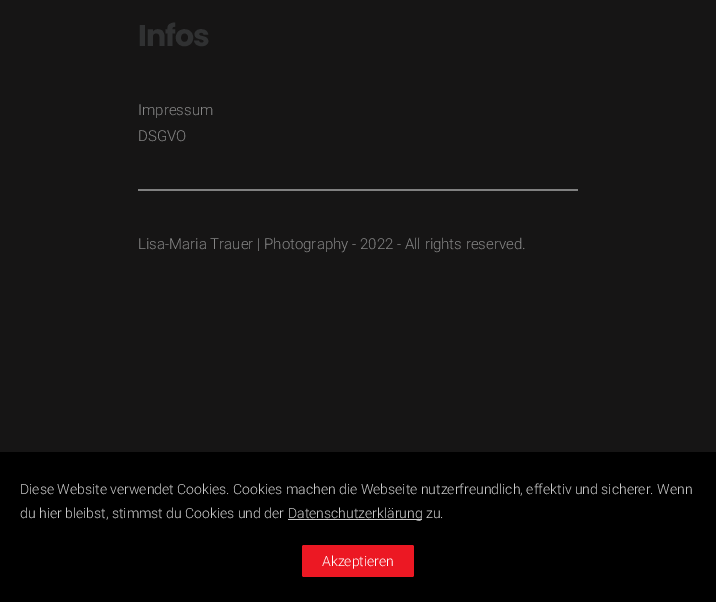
%!PS
<< /PageSize [716 602] >> setpagedevice
/rgb { 3 { 255 div 3 1 roll } repeat setrgbcolor } def
/font { [ exch dup neg 0 0 3 -1 roll 0 0 ] selectfont } def
/text { moveto show } def
/roundrect { 5 dict begin { /r /h /w /y /x } { exch def } forall
  x r add y moveto x w add y 2 copy h add r arct x w add y h add x 1 index r arct
  x y h add x y r arct x y 2 copy exch w add exch r arct closepath end } def
0 602 translate 1 -1 scale
4 setmiterlimit
22 21 21 rgb
0 0 716 602 rectfill
128 128 128 rgb
138 189 440 2 rectfill
0 0 0 rgb
0 452 716 150 rectfill
204 204 204 rgb
288 519 134 1 rectfill
236 24 35 rgb
302 545 112 32 2 roundrect fill
/Poppins-Bold 30 font
48 49 50 rgb
138 46 moveto -1 0 (Infos) ashow
/Roboto-Light 15 font
135 135 135 rgb
(Impressum) 138 115 text
(DSGVO) 138 141 text
(Lisa-Maria Trauer | Photography - 2022 - All rights reserved.) 138 249 text
/Roboto-Light 14 font
204 204 204 rgb
(Diese Website verwendet Cookies. Cookies machen die Webseite nutzerfreundlich, effektiv und sicherer. Wenn) 20 494 text
(du hier bleibst, stimmst du Cookies und der) 20 518 text
(Datenschutzerklärung zu.) 288 518 text
255 255 255 rgb
(Akzeptieren) 322 566 text
showpage
